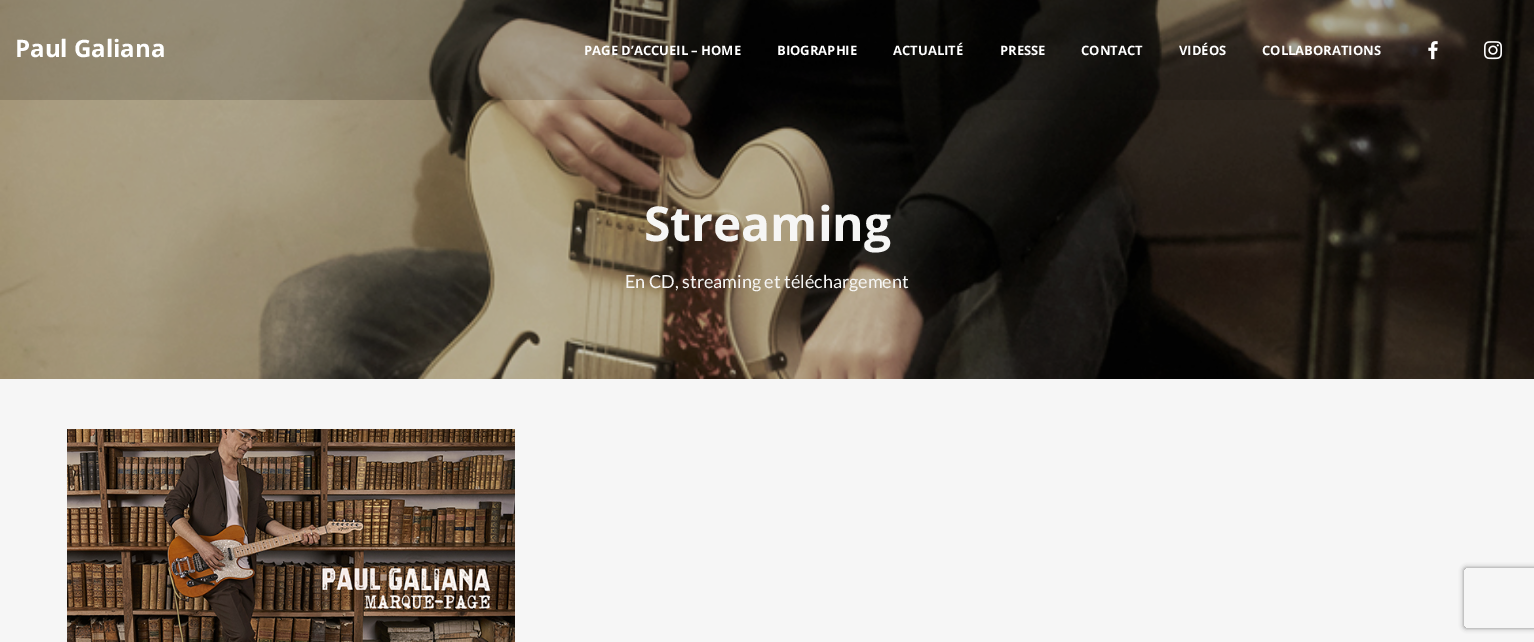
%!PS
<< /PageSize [1534 642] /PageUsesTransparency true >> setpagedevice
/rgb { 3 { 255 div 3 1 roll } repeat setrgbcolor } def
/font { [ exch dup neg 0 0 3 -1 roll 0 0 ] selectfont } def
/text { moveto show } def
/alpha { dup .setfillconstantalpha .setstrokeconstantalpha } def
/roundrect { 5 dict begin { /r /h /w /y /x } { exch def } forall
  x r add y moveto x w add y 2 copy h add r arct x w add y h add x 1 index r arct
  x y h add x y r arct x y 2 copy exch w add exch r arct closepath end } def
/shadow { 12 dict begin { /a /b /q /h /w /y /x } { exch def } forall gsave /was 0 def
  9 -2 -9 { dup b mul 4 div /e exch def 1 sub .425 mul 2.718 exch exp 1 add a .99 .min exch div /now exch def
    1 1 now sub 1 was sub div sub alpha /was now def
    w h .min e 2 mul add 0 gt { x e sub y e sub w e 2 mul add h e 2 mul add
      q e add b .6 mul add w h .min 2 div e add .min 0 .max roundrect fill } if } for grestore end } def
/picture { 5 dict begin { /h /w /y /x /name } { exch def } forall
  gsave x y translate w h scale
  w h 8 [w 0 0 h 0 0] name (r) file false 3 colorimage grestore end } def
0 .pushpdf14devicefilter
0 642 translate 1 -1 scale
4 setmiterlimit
255 255 255 rgb
0 0 1534 642 rectfill
(img_03.rgb) 0 0 1534 379 picture
0.14 alpha
0 0 0 rgb
0 0 1534 100 rectfill
1 alpha
(img_01.rgb) 1428 41 10 19 picture
(img_02.rgb) 1484 41 18 19 picture
246 246 246 rgb
0 379 1534 263 rectfill
(img_04.rgb) 67 429 448 213 picture
gsave
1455 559 moveto 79 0 rlineto 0 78 rlineto -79 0 rlineto closepath 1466 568 moveto 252 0 rlineto 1 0 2 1 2 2 rcurveto 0 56 rlineto 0 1 -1 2 -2 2 rcurveto -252 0 rlineto -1 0 -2 -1 -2 -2 rcurveto 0 -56 rlineto 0 -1 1 -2 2 -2 rcurveto closepath eoclip newpath
128 128 128 rgb
1464 568 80 60 2 2.5 1 shadow
grestore
/OpenSans-Bold 24 font
255 255 255 rgb
(Paul Galiana) 15 57 text
/OpenSans-Bold 13 font
(PAGE D’ACCUEIL – HOME) 584 55 text
(BIOGRAPHIE) 777 55 text
(ACTUALITÉ) 893 55 text
(PRESSE) 1000 55 text
(CONTACT) 1081 55 text
(VIDÉOS) 1179 55 text
(COLLABORATIONS) 1262 55 text
/OpenSans-Bold 48 font
246 246 245 rgb
(Streaming) 644 241 text
/Lato-Regular 18 font
(En CD, streaming et téléchargement) 625 288 text
.poppdf14devicefilter showpage
